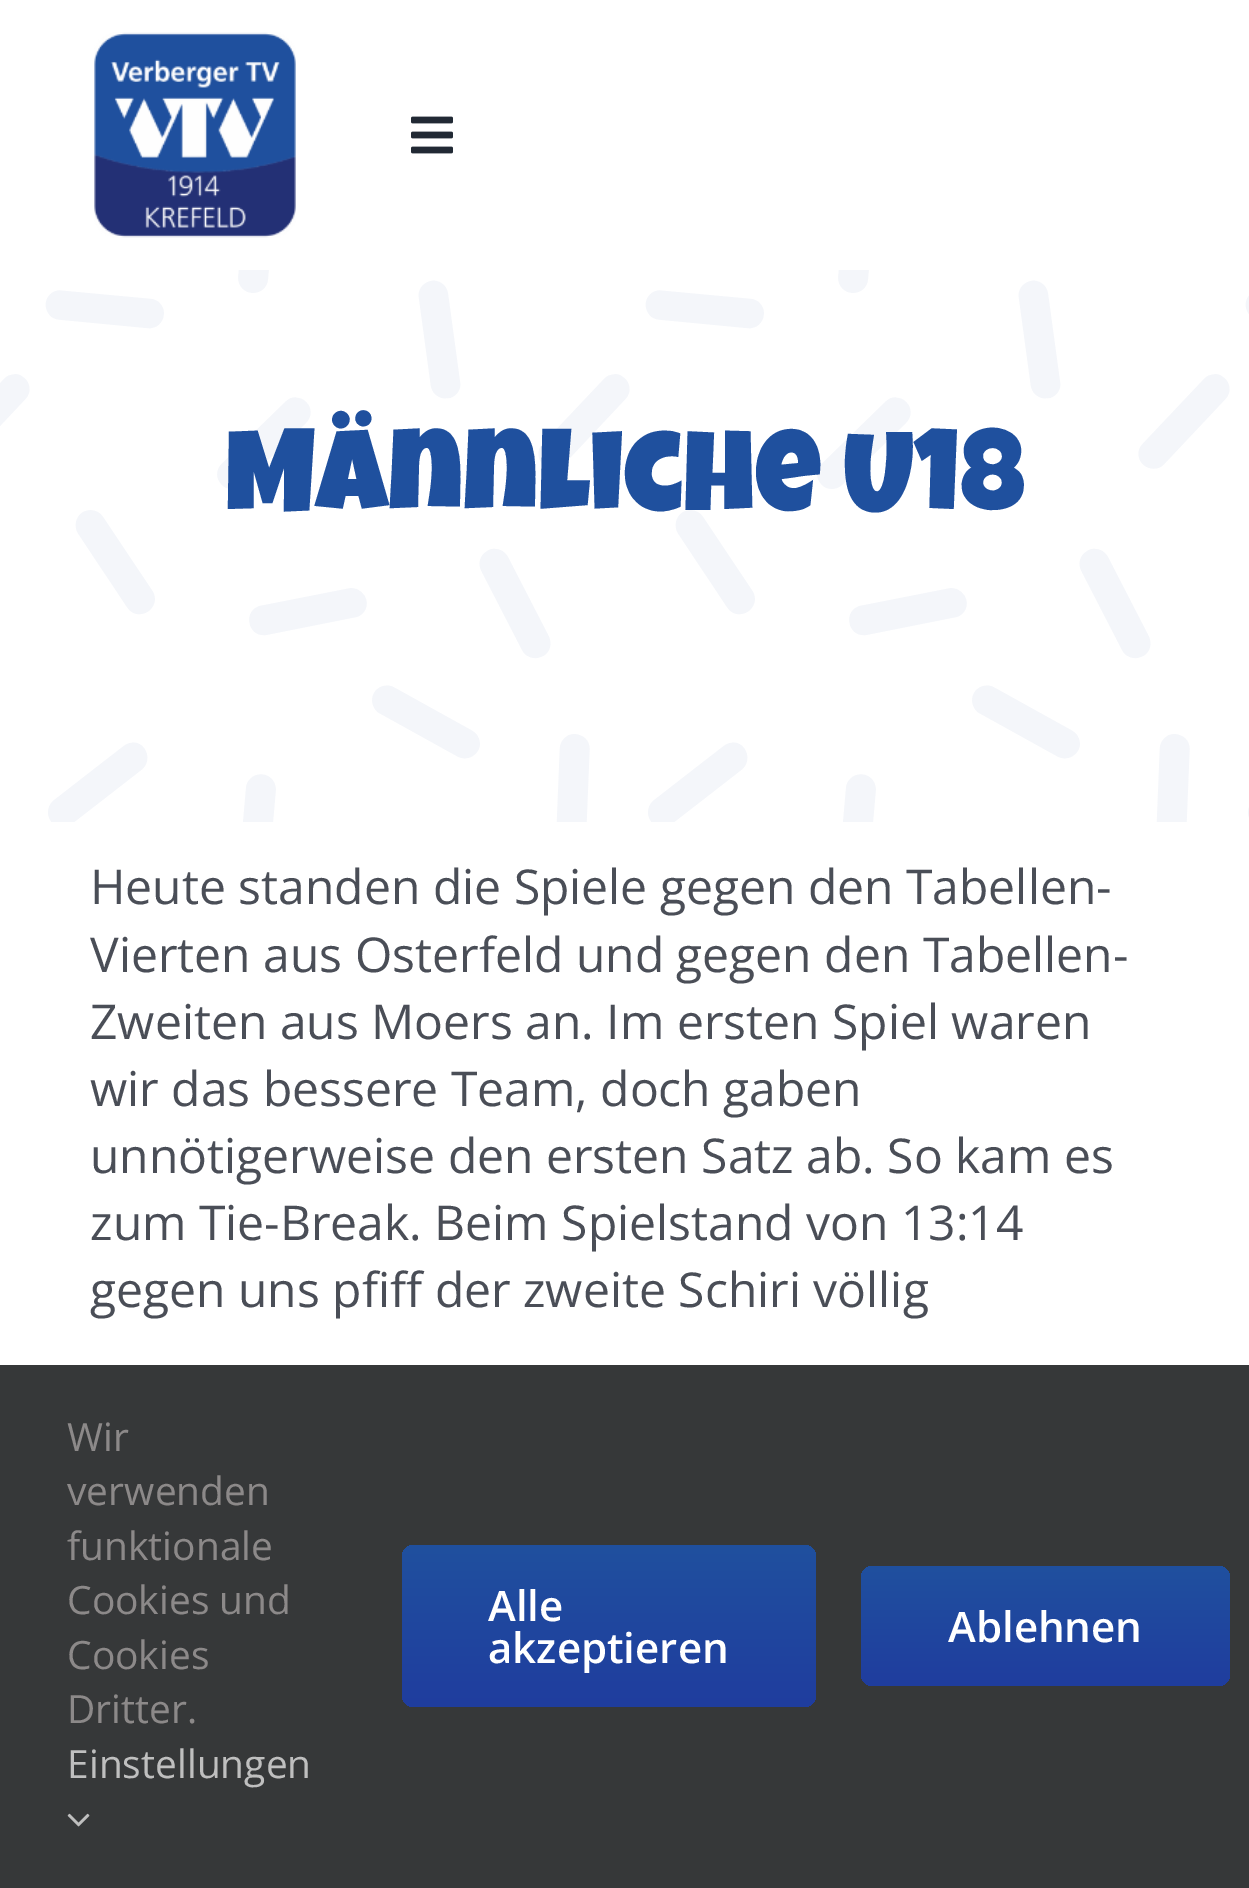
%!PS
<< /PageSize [1249 1888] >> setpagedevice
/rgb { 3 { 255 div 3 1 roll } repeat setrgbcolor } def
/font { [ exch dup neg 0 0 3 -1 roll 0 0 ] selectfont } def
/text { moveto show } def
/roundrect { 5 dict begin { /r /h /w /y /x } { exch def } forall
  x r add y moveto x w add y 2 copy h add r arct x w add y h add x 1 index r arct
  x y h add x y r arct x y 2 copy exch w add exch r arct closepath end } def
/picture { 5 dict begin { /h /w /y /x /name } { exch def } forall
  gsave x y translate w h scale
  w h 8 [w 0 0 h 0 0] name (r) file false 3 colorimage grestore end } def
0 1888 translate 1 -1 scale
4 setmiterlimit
255 255 255 rgb
0 0 1249 1888 rectfill
(img_01.rgb) 94 32 202 206 picture
(img_02.rgb) 411 116 42 38 picture
(img_03.rgb) 0 270 1249 552 picture
54 56 57 rgb
0 1365 1249 523 rectfill
(img_04.rgb) 67 1813 23 14 picture
gsave 402 1545 414 162 12 roundrect clip newpath
<< /ShadingType 2 /ColorSpace /DeviceRGB /Coords [609 1545 609 1707] /Extend [true true] /Function << /FunctionType 2 /Domain [0 1] /C0 [0.122 0.314 0.62] /C1 [0.122 0.239 0.62] /N 1 >> >> shfill grestore
gsave 861 1566 369 120 12 roundrect clip newpath
<< /ShadingType 2 /ColorSpace /DeviceRGB /Coords [1046 1566 1046 1686] /Extend [true true] /Function << /FunctionType 2 /Domain [0 1] /C0 [0.122 0.314 0.62] /C1 [0.122 0.239 0.62] /N 1 >> >> shfill grestore
/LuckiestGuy-Regular 115 font
31 80 158 rgb
(Männliche U18) 225 510 text
/OpenSans-Regular 48 font
74 78 87 rgb
(Heute standen die Spiele gegen den Tabellen-) 90 904 text
(Vierten aus Osterfeld und gegen den Tabellen-) 90 972 text
(Zweiten aus Moers an. Im ersten Spiel waren) 90 1039 text
(wir das bessere Team, doch gaben) 90 1106 text
(unnötigerweise den ersten Satz ab. So kam es) 90 1173 text
(zum Tie-Break. Beim Spielstand von 13:14) 90 1240 text
(gegen uns pfiff der zweite Schiri völlig) 90 1307 text
/OpenSans-Regular 39 font
140 137 137 rgb
(Wir) 67 1451 text
(verwenden) 67 1505 text
(funktionale) 67 1560 text
(Cookies und) 67 1614 text
(Cookies) 67 1669 text
(Dritter.) 67 1723 text
191 191 191 rgb
(Einstellungen) 67 1778 text
/OpenSans-SemiBold 42 font
255 255 255 rgb
(Alle) 488 1621 text
(akzeptieren) 488 1663 text
(Ablehnen) 948 1642 text
showpage
